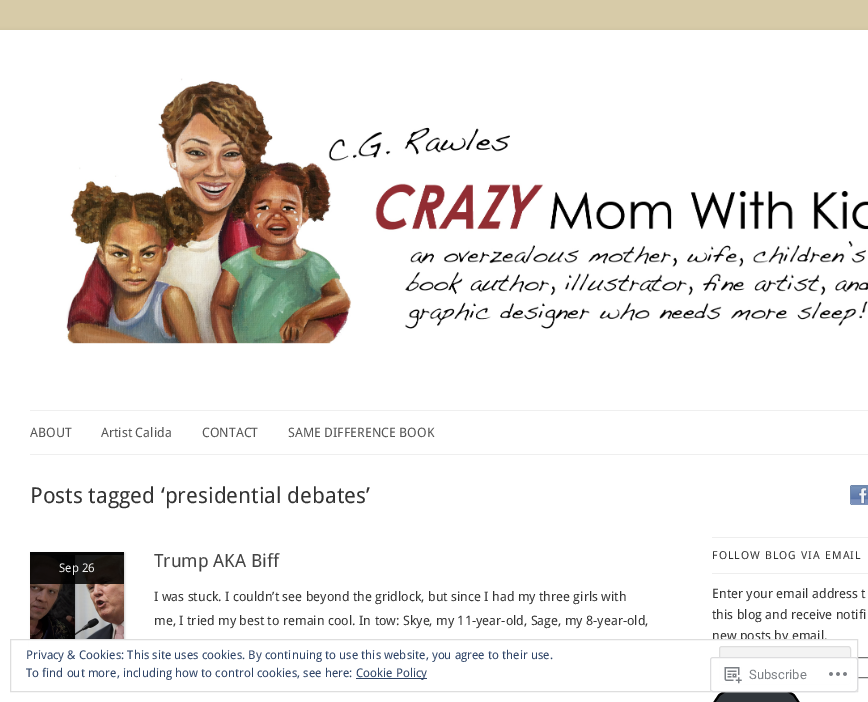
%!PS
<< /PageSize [868 702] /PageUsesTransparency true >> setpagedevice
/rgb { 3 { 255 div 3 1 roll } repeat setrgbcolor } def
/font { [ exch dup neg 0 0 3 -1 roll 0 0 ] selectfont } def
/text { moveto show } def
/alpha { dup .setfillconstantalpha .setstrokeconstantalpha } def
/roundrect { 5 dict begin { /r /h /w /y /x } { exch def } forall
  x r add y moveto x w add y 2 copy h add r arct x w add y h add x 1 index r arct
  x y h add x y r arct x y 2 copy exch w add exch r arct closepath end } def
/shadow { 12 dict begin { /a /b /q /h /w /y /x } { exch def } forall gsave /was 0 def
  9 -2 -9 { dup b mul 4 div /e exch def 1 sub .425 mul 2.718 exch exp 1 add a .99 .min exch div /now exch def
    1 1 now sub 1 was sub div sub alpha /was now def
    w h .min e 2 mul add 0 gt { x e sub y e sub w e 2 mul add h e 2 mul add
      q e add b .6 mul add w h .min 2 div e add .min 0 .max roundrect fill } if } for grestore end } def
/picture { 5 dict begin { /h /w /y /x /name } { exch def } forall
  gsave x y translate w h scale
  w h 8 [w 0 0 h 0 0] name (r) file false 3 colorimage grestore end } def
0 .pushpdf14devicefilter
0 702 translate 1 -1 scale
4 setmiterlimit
215 203 168 rgb
0 0 868 702 rectfill
100 100 100 rgb
0 32 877 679 0 3 0.3 shadow
255 255 255 rgb
0 30 868 672 rectfill
(img_01.rgb) 66 78 802 266 picture
239 239 239 rgb
30 410 838 1 rectfill
30 454 838 1 rectfill
100 100 100 rgb
31 553 94 94 0 1 0.3 shadow
(img_02.rgb) 30 552 94 87 picture
0.85 alpha
0 0 0 rgb
30 552 94 32 rectfill
1 alpha
(img_03.rgb) 850 485 18 20 picture
238 238 238 rgb
712 537 156 1 rectfill
712 573 156 1 rectfill
118 118 118 rgb
712.5 657.5 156 20 rectstroke
50 55 60 rgb
713 689 87 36 21 roundrect gsave fill grestore
0 0 0 rgb
2 setlinewidth
stroke
/DroidSans-Regular 13 font
85 85 85 rgb
(ABOUT) 30 437 text
(Artist Calida) 101 437 text
(CONTACT) 202 437 text
(SAME DIFFERENCE BOOK) 288 437 text
/DroidSans-Regular 22 font
51 51 51 rgb
(Posts tagged ‘presidential debates’) 30 503 text
/DroidSans-Regular 12 font
239 239 239 rgb
(Sep 26) 59 572 text
/DroidSans-Regular 18.25 font
68 68 68 rgb
(Trump AKA Biff) 154 567 text
/DroidSans-Regular 13 font
51 51 51 rgb
(I was stuck. I couldn’t see beyond the gridlock, but since I had my three girls with) 154 601 text
(me, I tried my best to remain cool. In tow: Skye, my 11-year-old, Sage, my 8-year-old,) 154 625 text
/DroidSans-Regular 11 font
712 559 moveto 1.1 0 (FOLLOW BLOG VIA EMAIL) ashow
/DroidSans-Regular 13 font
(Enter your email address t) 712 598 text
(this blog and receive notifi) 712 619 text
(new posts by email.) 712 640 text
255 255 255 rgb
29 640 828 51 rectfill
222 222 222 rgb
1 setlinewidth
10.5 639.5 847 52 rectstroke
/DroidSans-Regular 12 font
46 68 103 rgb
(Privacy & Cookies: This site uses cookies. By continuing to use this website, you agree to their use.) 26 659 text
243 243 243 rgb
719.5 646.5 131 38 2.5 roundrect gsave fill grestore
222 222 222 rgb
stroke
46 68 103 rgb
(To find out more, including how to control cookies, see here:) 26 677 text
356 678 71 1 rectfill
(Cookie Policy) 356 677 text
0.98 alpha
255 255 255 rgb
710 657 148 35 3 roundrect fill
220 220 222 rgb
710.5 657.5 147 34 2.5 roundrect stroke
1 alpha
(img_04.rgb) 724 667 18 17 picture
/Roboto-Regular 13 font
123 127 132 rgb
(Subscribe) 749 679 text
(img_05.rgb) 829 672 18 4 picture
.poppdf14devicefilter showpage
